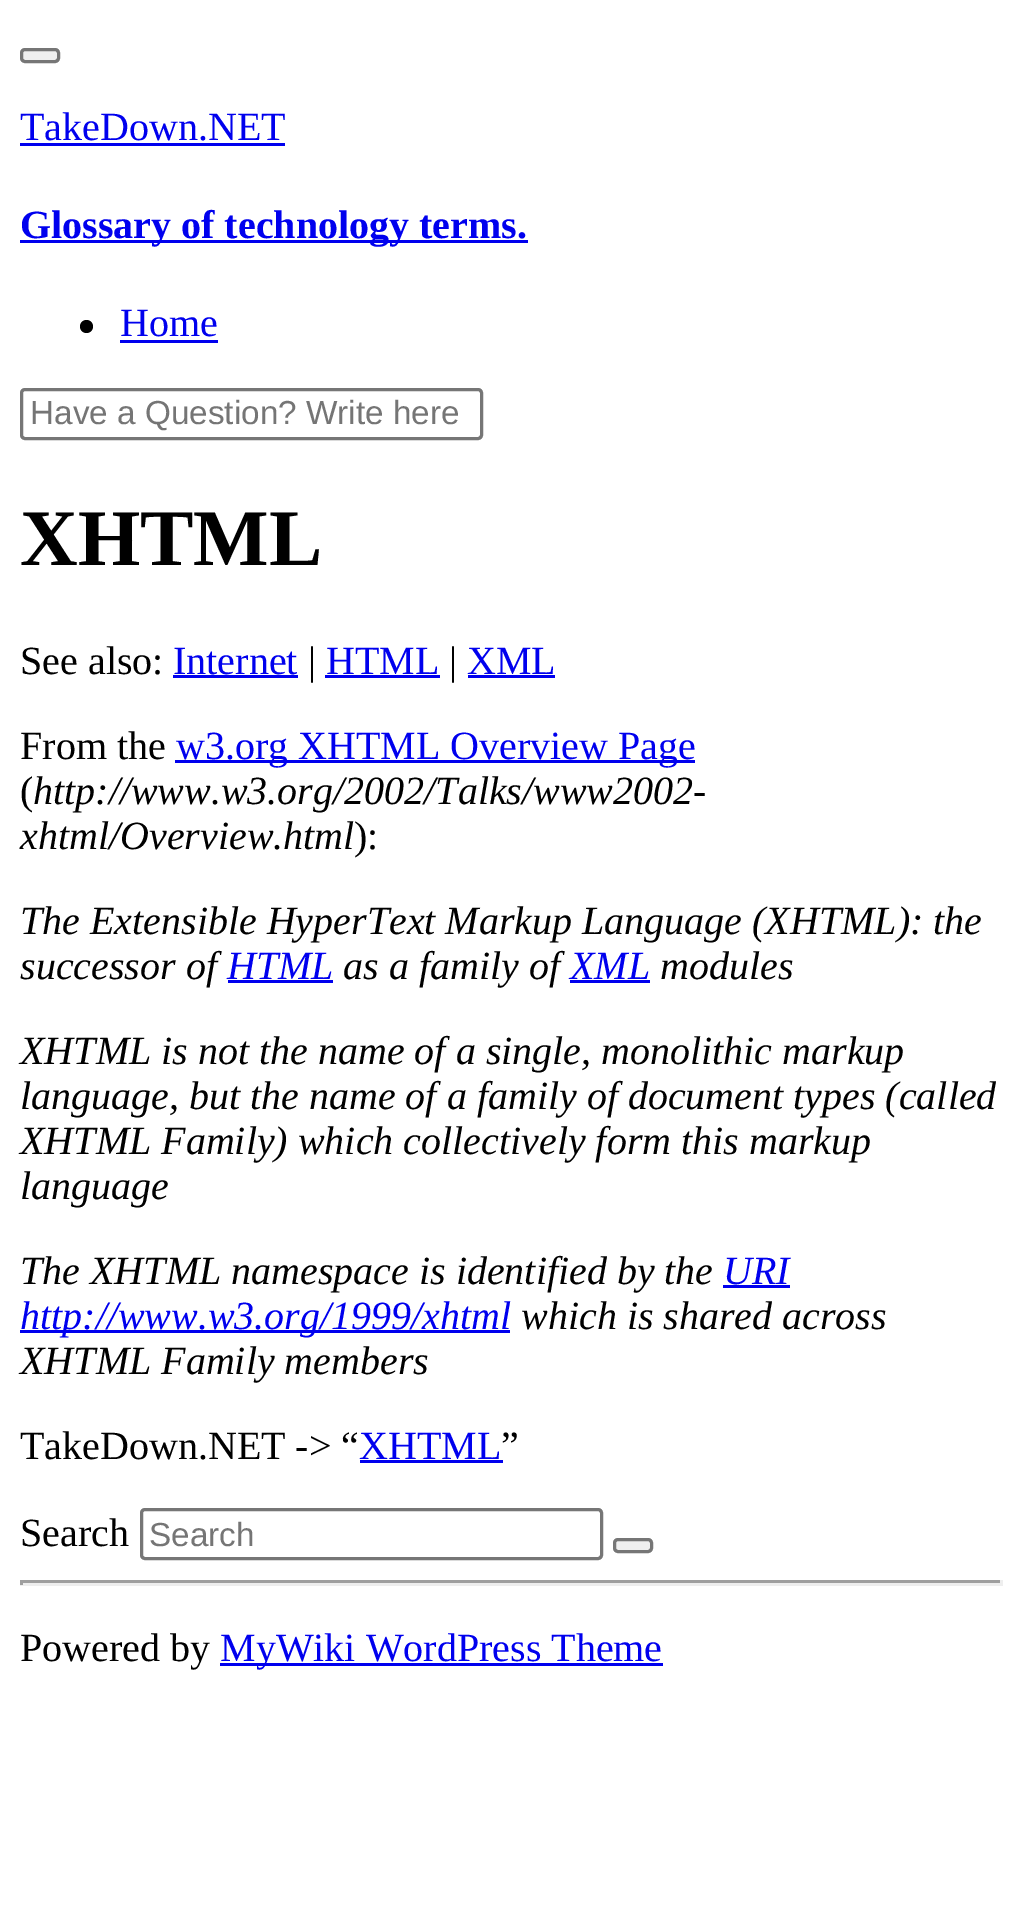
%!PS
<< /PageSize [1021 1905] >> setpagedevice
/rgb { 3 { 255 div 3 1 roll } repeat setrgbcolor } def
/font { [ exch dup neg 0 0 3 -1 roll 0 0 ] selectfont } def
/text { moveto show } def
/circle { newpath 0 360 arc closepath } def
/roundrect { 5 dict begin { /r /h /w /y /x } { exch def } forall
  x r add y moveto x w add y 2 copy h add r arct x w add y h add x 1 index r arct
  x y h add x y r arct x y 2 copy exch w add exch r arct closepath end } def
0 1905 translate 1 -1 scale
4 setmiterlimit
255 255 255 rgb
0 0 1021 1905 rectfill
239 239 239 rgb
21.5 49.5 37 12 3.5 roundrect gsave fill grestore
118 118 118 rgb
3 setlinewidth
stroke
0 0 238 rgb
20 143 265 3 rectfill
20 240 508 3 rectfill
0 0 0 rgb
86.5 326.5 6.5 circle fill
0 0 238 rgb
120 340 98 3 rectfill
118 118 118 rgb
21.5 389.5 460 49 3.5 roundrect stroke
0 0 238 rgb
173 675 125 3 rectfill
325 675 115 3 rectfill
468 675 87 3 rectfill
175 760 520 3 rectfill
228 980 105 3 rectfill
570 980 80 3 rectfill
723 1285 67 3 rectfill
20 1330 490 3 rectfill
360 1460 143 3 rectfill
118 118 118 rgb
141.5 1509.5 460 49 3.5 roundrect stroke
239 239 239 rgb
614.5 1539.5 37 12 3.5 roundrect gsave fill grestore
118 118 118 rgb
stroke
159 159 159 rgb
20 1580 983 3 rectfill
238 238 238 rgb
1000 1580 3 5 rectfill
20 1583 983 3 rectfill
159 159 159 rgb
20 1580 3 5 rectfill
0 0 238 rgb
220 1663 443 3 rectfill
/LiberationSerif-Regular 40 font
(TakeDown.NET) 20 140 text
/LiberationSerif-Bold 40 font
(Glossary of technology terms.) 20 238 text
/LiberationSerif-Regular 40 font
(Home) 120 336 text
/LiberationSans-Regular 33.3 font
117 117 117 rgb
(Have a Question? Write here) 30 424 text
/LiberationSerif-Bold 80 font
0 0 0 rgb
(XHTML) 20 565 text
/LiberationSerif-Regular 40 font
(See also:) 20 674 text
0 0 238 rgb
(Internet) 173 674 text
0 0 0 rgb
(|) 308 674 text
0 0 238 rgb
(HTML) 326 674 text
0 0 0 rgb
(|) 449 674 text
0 0 238 rgb
(XML) 467 674 text
0 0 0 rgb
(From the) 20 759 text
0 0 238 rgb
(w3.org XHTML Overview Page) 176 759 text
0 0 0 rgb
(\() 20 804 text
/LiberationSerif-Italic 40 font
(http://www.w3.org/2002/Talks/www2002-) 33 804 text
(xhtml/Overview.html) 20 849 text
/LiberationSerif-Regular 40 font
(\):) 354 849 text
/LiberationSerif-Italic 40 font
(The Extensible HyperText Markup Language \(XHTML\): the) 20 934 text
(successor of) 20 979 text
0 0 238 rgb
(HTML) 227 979 text
0 0 0 rgb
(as a family of) 343 979 text
0 0 238 rgb
(XML) 570 979 text
0 0 0 rgb
(modules) 660 979 text
(XHTML is not the name of a single, monolithic markup) 20 1064 text
(language, but the name of a family of document types \(called) 20 1109 text
(XHTML Family\) which collectively form this markup) 20 1154 text
(language) 20 1199 text
(The XHTML namespace is identified by the) 20 1284 text
0 0 238 rgb
(URI) 723 1284 text
(http://www.w3.org/1999/xhtml) 20 1329 text
0 0 0 rgb
(which is shared across) 521 1329 text
(XHTML Family members) 20 1374 text
/LiberationSerif-Regular 40 font
(TakeDown.NET -> “) 20 1459 text
0 0 238 rgb
(XHTML) 359 1459 text
0 0 0 rgb
(”) 501 1459 text
(Search) 20 1546 text
/LiberationSans-Regular 33.3 font
117 117 117 rgb
(Search) 149 1546 text
/LiberationSerif-Regular 40 font
0 0 0 rgb
(Powered by) 20 1661 text
0 0 238 rgb
(MyWiki WordPress Theme) 220 1661 text
showpage
